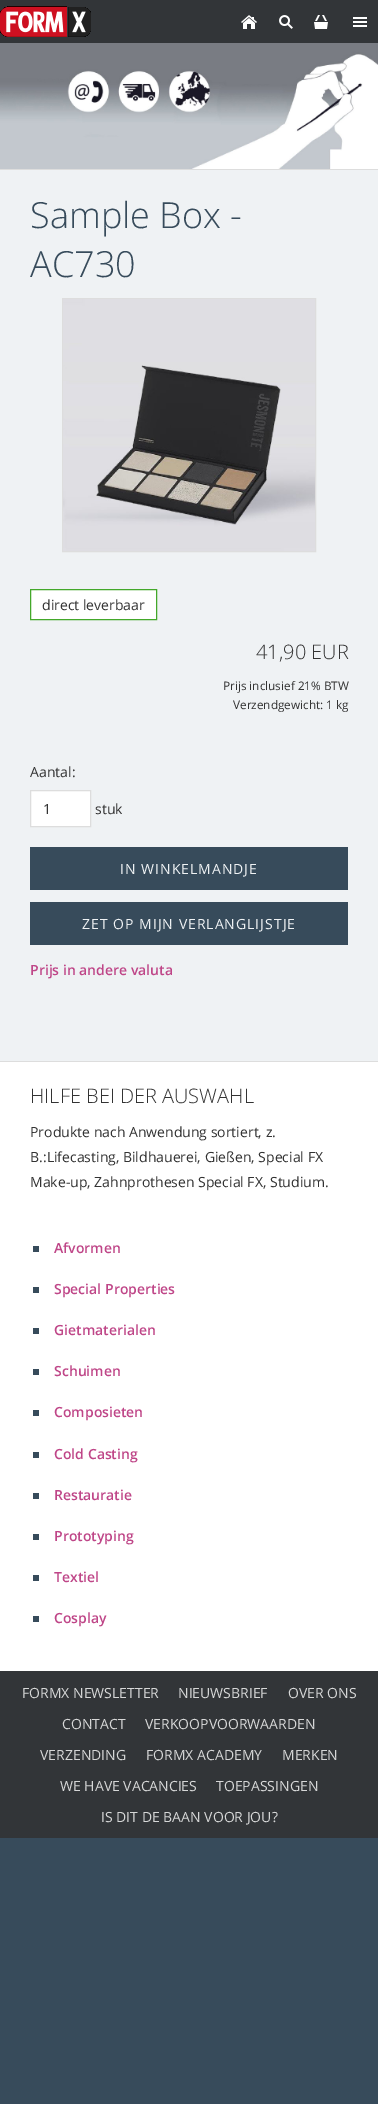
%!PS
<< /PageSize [378 2104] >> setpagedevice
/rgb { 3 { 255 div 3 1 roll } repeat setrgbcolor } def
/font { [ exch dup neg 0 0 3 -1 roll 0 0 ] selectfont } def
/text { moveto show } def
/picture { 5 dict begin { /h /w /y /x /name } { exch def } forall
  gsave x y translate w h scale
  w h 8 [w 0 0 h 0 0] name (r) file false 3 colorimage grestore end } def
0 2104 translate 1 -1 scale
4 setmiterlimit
55 75 91 rgb
0 0 378 2104 rectfill
50 53 56 rgb
0 0 378 43 rectfill
(img_01.rgb) 0 6 91 31 picture
(img_02.rgb) 241 15 16 14 picture
(img_03.rgb) 279 15 14 14 picture
(img_04.rgb) 314 15 14 14 picture
(img_05.rgb) 353 17 14 10 picture
239 242 244 rgb
0 170 378 891 rectfill
221 221 221 rgb
0 169 378 1 rectfill
(img_06.rgb) 0 43 378 126 picture
62.5 298.5 253 253 rectstroke
(img_07.rgb) 63 299 252 252 picture
255 255 255 rgb
30.5 589.5 moveto 126 0 rlineto 0 30 rlineto -126 0 rlineto closepath gsave fill grestore
67 168 42 rgb
stroke
255 255 255 rgb
30.5 790.5 moveto 60 0 rlineto 0 36 rlineto -60 0 rlineto closepath gsave fill grestore
221 221 221 rgb
stroke
55 75 91 rgb
30 847 318 43 rectfill
30 902 318 43 rectfill
255 255 255 rgb
0 1062 378 609 rectfill
221 221 221 rgb
0 1061 378 1 rectfill
55 75 91 rgb
33 1246 6 6 rectfill
33 1287 6 6 rectfill
33 1328 6 6 rectfill
33 1369 6 6 rectfill
33 1410 6 6 rectfill
33 1452 6 6 rectfill
33 1493 6 6 rectfill
33 1534 6 6 rectfill
33 1575 6 6 rectfill
33 1616 6 6 rectfill
50 53 56 rgb
0 1671 378 167 rectfill
/OpenSans-Light 36 font
55 75 91 rgb
(Sample Box -) 30 228 text
(AC730) 30 277 text
/OpenSans-Regular 14 font
51 51 51 rgb
(direct leverbaar) 42 610 text
/OpenSans-Light 20 font
(41,90 EUR) 256 659 text
/OpenSans-Regular 11.75 font
(Prijs inclusief 21% BTW) 223 690 text
(Verzendgewicht: 1 kg) 233 709 text
/OpenSans-Regular 14 font
(Aantal:) 30 777 text
(1) 43 814 text
(stuk) 95 814 text
239 242 244 rgb
120 874 moveto 1 0 (IN WINKELMANDJE) ashow
82 929 moveto 1 0 (ZET OP MIJN VERLANGLIJSTJE) ashow
/OpenSans-SemiBold 14 font
191 70 136 rgb
(Prijs in andere valuta) 30 975 text
/OpenSans-Light 20 font
51 51 51 rgb
(HILFE BEI DER AUSWAHL) 30 1103 text
/OpenSans-Regular 14 font
(Produkte nach Anwendung sortiert, z.) 30 1137 text
(B.:Lifecasting, Bildhauerei, Gießen, Special FX) 30 1162 text
(Make-up, Zahnprothesen Special FX, Studium.) 30 1187 text
/OpenSans-SemiBold 14 font
191 70 136 rgb
(Afvormen) 54 1253 text
(Special Properties) 54 1294 text
(Gietmaterialen) 54 1335 text
(Schuimen) 54 1376 text
(Composieten) 54 1417 text
(Cold Casting) 54 1459 text
(Restauratie) 54 1500 text
(Prototyping) 54 1541 text
(Textiel) 54 1582 text
(Cosplay) 54 1623 text
/OpenSans-Regular 14 font
214 215 215 rgb
(FORMX NEWSLETTER) 22 1698 text
(NIEUWSBRIEF) 178 1698 text
(OVER ONS) 288 1698 text
(CONTACT) 62 1729 text
(VERKOOPVOORWAARDEN) 145 1729 text
(VERZENDING) 40 1760 text
(FORMX ACADEMY) 146 1760 text
(MERKEN) 282 1760 text
(WE HAVE VACANCIES) 60 1791 text
(TOEPASSINGEN) 216 1791 text
(IS DIT DE BAAN VOOR JOU?) 101 1822 text
showpage
